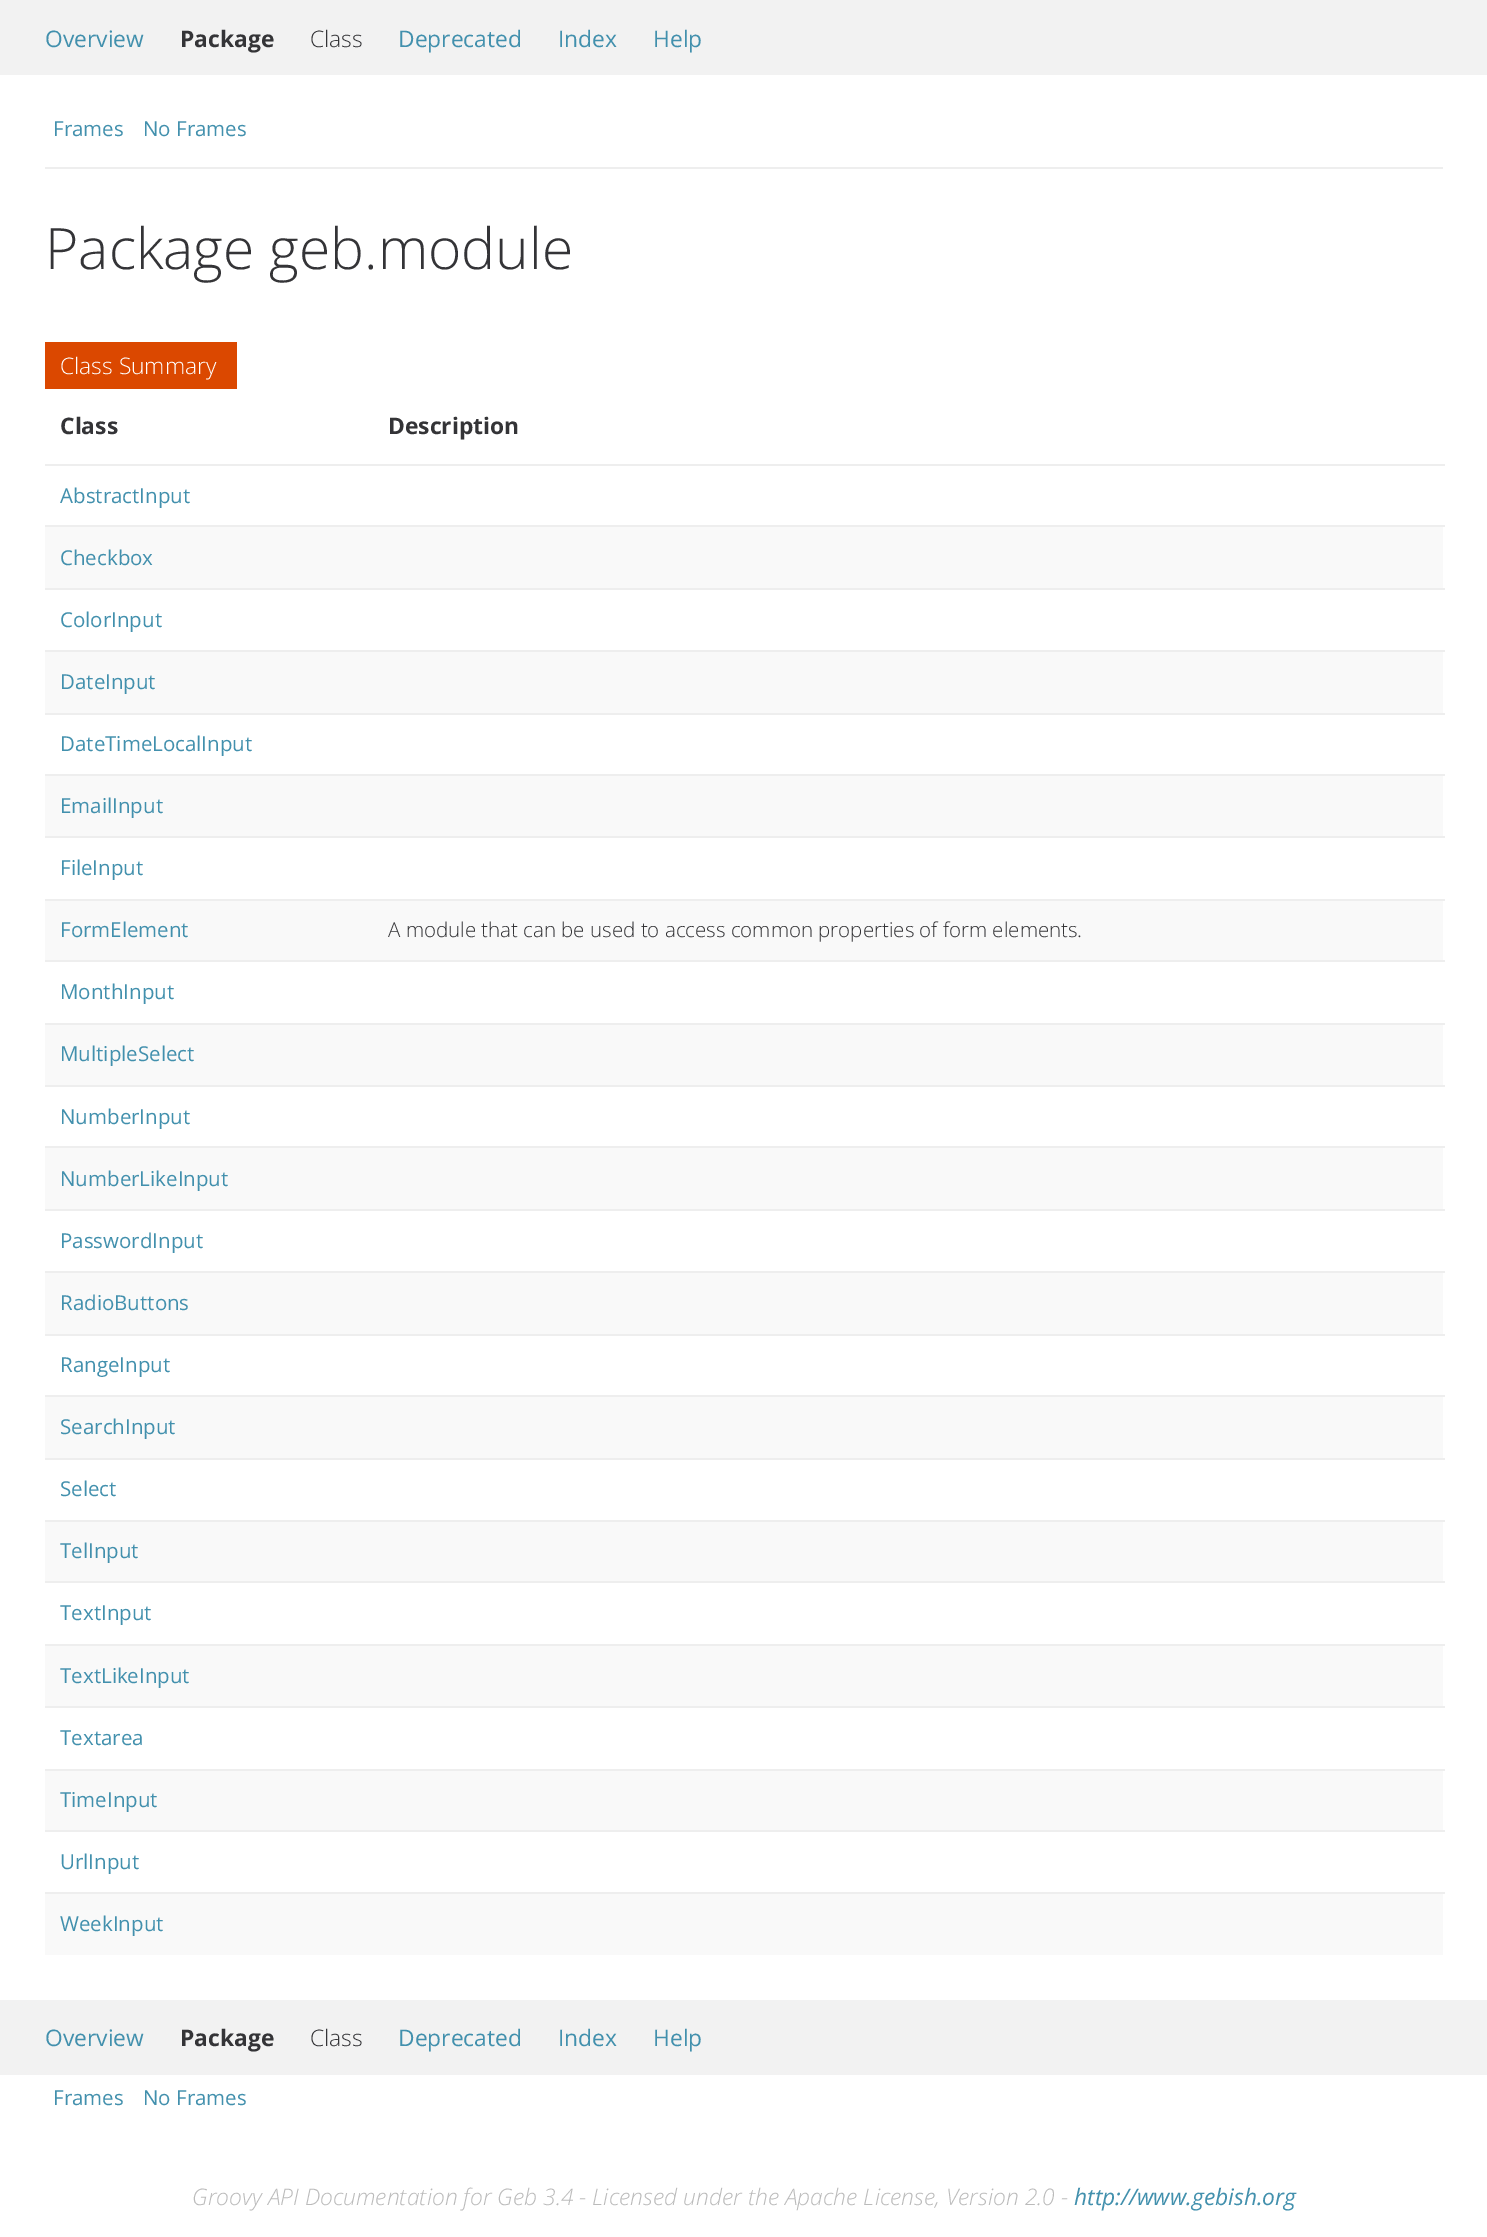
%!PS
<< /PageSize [1487 2237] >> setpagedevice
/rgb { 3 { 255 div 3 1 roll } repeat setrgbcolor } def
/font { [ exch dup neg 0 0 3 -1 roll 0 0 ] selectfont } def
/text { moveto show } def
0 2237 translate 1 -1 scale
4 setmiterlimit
255 255 255 rgb
0 0 1487 2237 rectfill
242 242 242 rgb
0 0 1487 75 rectfill
238 238 238 rgb
45 167 1398 2 rectfill
219 72 0 rgb
45 342 192 47 rectfill
238 238 238 rgb
45 464 1400 2 rectfill
45 525 1400 2 rectfill
249 249 249 rgb
45 527 1398 61 rectfill
238 238 238 rgb
45 588 1400 2 rectfill
45 650 1400 2 rectfill
249 249 249 rgb
45 652 1398 61 rectfill
238 238 238 rgb
45 713 1400 2 rectfill
45 774 1400 2 rectfill
249 249 249 rgb
45 776 1398 60 rectfill
238 238 238 rgb
45 836 1400 2 rectfill
249 249 249 rgb
45 901 1398 59 rectfill
238 238 238 rgb
45 899 1400 2 rectfill
45 960 1400 2 rectfill
45 1023 1400 2 rectfill
249 249 249 rgb
45 1025 1398 60 rectfill
238 238 238 rgb
45 1085 1400 2 rectfill
45 1146 1400 2 rectfill
249 249 249 rgb
45 1148 1398 61 rectfill
238 238 238 rgb
45 1209 1400 2 rectfill
45 1271 1400 2 rectfill
249 249 249 rgb
45 1273 1398 61 rectfill
238 238 238 rgb
45 1334 1400 2 rectfill
45 1395 1400 2 rectfill
249 249 249 rgb
45 1397 1398 61 rectfill
238 238 238 rgb
45 1458 1400 2 rectfill
45 1520 1400 2 rectfill
249 249 249 rgb
45 1522 1398 59 rectfill
238 238 238 rgb
45 1581 1400 2 rectfill
45 1644 1400 2 rectfill
249 249 249 rgb
45 1646 1398 60 rectfill
238 238 238 rgb
45 1706 1400 2 rectfill
45 1769 1400 2 rectfill
249 249 249 rgb
45 1771 1398 59 rectfill
238 238 238 rgb
45 1830 1400 2 rectfill
45 1892 1400 2 rectfill
249 249 249 rgb
45 1894 1398 61 rectfill
242 242 242 rgb
0 2000 1487 75 rectfill
/OpenSans-Regular 22.8 font
66 144 173 rgb
(Overview) 45 47 text
/OpenSans-Bold 22.8 font
52 52 55 rgb
(Package) 180 47 text
/OpenSans-Light 22.8 font
(Class) 310 47 text
/OpenSans-Regular 22.8 font
66 144 173 rgb
(Deprecated) 398 47 text
(Index) 558 47 text
(Help) 653 47 text
/OpenSans-Regular 20.5 font
(Frames) 53 136 text
(No Frames) 143 136 text
/OpenSans-Light 57 font
52 52 55 rgb
(Package geb.module) 45 269 text
/OpenSans-Light 22.8 font
255 255 255 rgb
(Class Summary) 60 374 text
/OpenSans-Bold 22.8 font
52 52 55 rgb
(Class) 60 434 text
(Description) 388 434 text
/OpenSans-Regular 20.5 font
66 144 173 rgb
(AbstractInput) 60 503 text
(Checkbox) 60 565 text
(ColorInput) 60 627 text
(DateInput) 60 689 text
(DateTimeLocalInput) 60 751 text
(EmailInput) 60 813 text
(FileInput) 60 875 text
(FormElement) 60 937 text
/OpenSans-Light 20.5 font
52 52 55 rgb
(A module that can be used to access common properties of form elements.) 388 937 text
/OpenSans-Regular 20.5 font
66 144 173 rgb
(MonthInput) 60 999 text
(MultipleSelect) 60 1061 text
(NumberInput) 60 1124 text
(NumberLikeInput) 60 1186 text
(PasswordInput) 60 1248 text
(RadioButtons) 60 1310 text
(RangeInput) 60 1372 text
(SearchInput) 60 1434 text
(Select) 60 1496 text
(TelInput) 60 1558 text
(TextInput) 60 1620 text
(TextLikeInput) 60 1683 text
(Textarea) 60 1745 text
(TimeInput) 60 1807 text
(UrlInput) 60 1869 text
(WeekInput) 60 1931 text
/OpenSans-Regular 22.8 font
(Overview) 45 2046 text
/OpenSans-Bold 22.8 font
52 52 55 rgb
(Package) 180 2046 text
/OpenSans-Light 22.8 font
(Class) 310 2046 text
/OpenSans-Regular 22.8 font
66 144 173 rgb
(Deprecated) 398 2046 text
(Index) 558 2046 text
(Help) 653 2046 text
/OpenSans-Regular 20.5 font
(Frames) 53 2105 text
(No Frames) 143 2105 text
/OpenSans-LightItalic 22.8 font
187 187 187 rgb
(Groovy API Documentation for Geb 3.4 - Licensed under the Apache License, Version 2.0 -) 192 2205 text
/OpenSans-Italic 22.8 font
66 144 173 rgb
(http://www.gebish.org) 1074 2205 text
showpage
